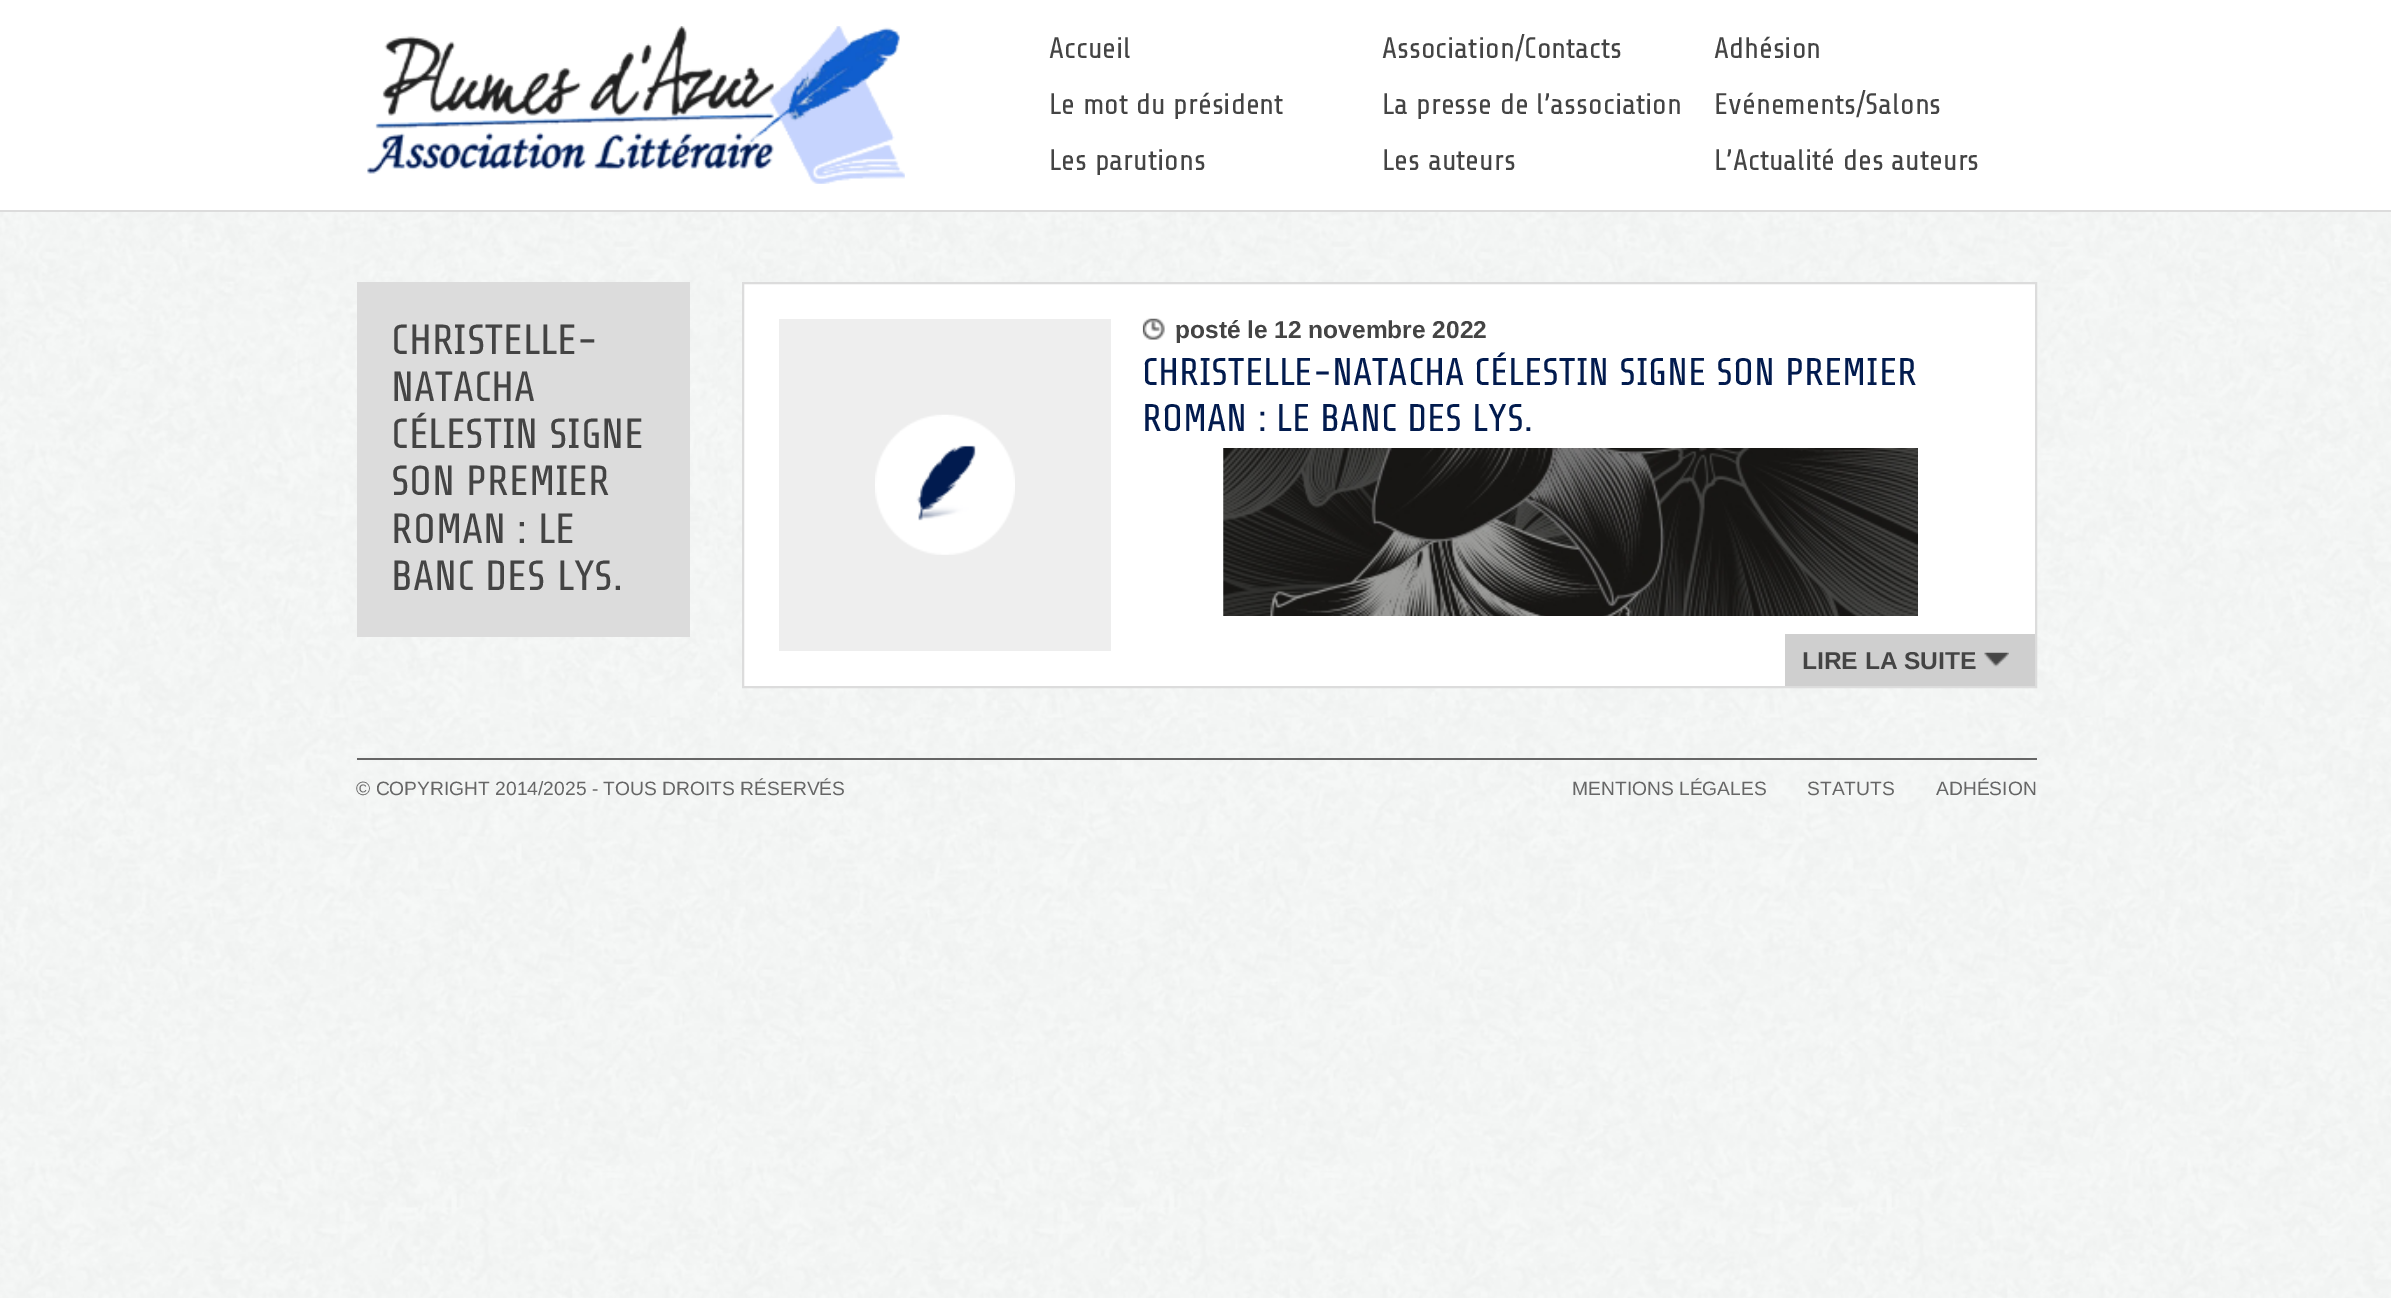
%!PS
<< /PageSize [2391 1298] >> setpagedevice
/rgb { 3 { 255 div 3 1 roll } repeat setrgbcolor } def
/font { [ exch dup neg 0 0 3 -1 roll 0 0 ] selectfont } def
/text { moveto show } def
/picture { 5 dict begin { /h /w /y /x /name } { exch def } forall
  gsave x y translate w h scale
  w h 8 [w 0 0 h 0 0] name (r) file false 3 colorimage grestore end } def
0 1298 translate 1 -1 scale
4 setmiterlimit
255 255 255 rgb
0 0 2391 1298 rectfill
(img_01.rgb) 0 212 2391 1086 picture
220 220 220 rgb
0 210 2391 2 rectfill
(img_02.rgb) 367 26 538 158 picture
357 282 333 355 rectfill
255 255 255 rgb
743 283 moveto 1293 0 rlineto 0 404 rlineto -1293 0 rlineto closepath gsave fill grestore
220 220 220 rgb
2 setlinewidth
stroke
238 238 238 rgb
779 319 332 332 rectfill
(img_03.rgb) 875 414 140 141 picture
(img_04.rgb) 1142 318 23 22 picture
(img_05.rgb) 1223 448 695 168 picture
207 207 207 rgb
1785 634 250 52 rectfill
(img_06.rgb) 1984 652 25 15 picture
102 102 102 rgb
357 758 1680 2 rectfill
/ShareTech-Regular 29.75 font
68 68 68 rgb
(Accueil) 1049 58 text
(Association/Contacts) 1382 58 text
(Adhésion) 1714 58 text
(Le mot du président) 1049 114 text
(La presse de l’association) 1382 114 text
(Evénements/Salons) 1714 114 text
(Les parutions) 1049 170 text
(Les auteurs) 1382 170 text
(L’Actualité des auteurs) 1714 170 text
/ShareTech-Regular 42 font
(CHRISTELLE-) 391 354 text
(NATACHA) 391 401 text
(CÉLESTIN SIGNE) 391 448 text
(SON PREMIER) 391 495 text
(ROMAN : LE) 391 543 text
(BANC DES LYS.) 391 590 text
/LiberationSans-Bold 24.5 font
(posté le 12 novembre 2022) 1175 338 text
/ShareTech-Regular 38.5 font
2 27 78 rgb
(CHRISTELLE-NATACHA CÉLESTIN SIGNE SON PREMIER) 1142 385 text
(ROMAN : LE BANC DES LYS.) 1142 431 text
/LiberationSans-Bold 24.5 font
68 68 68 rgb
(LIRE LA SUITE) 1802 669 text
/LiberationSans-Regular 19.25 font
102 102 102 rgb
(© COPYRIGHT 2014/2025 - TOUS DROITS RÉSERVÉS) 356 795 text
(MENTIONS LÉGALES) 1572 795 text
(STATUTS) 1807 795 text
(ADHÉSION) 1936 795 text
showpage
